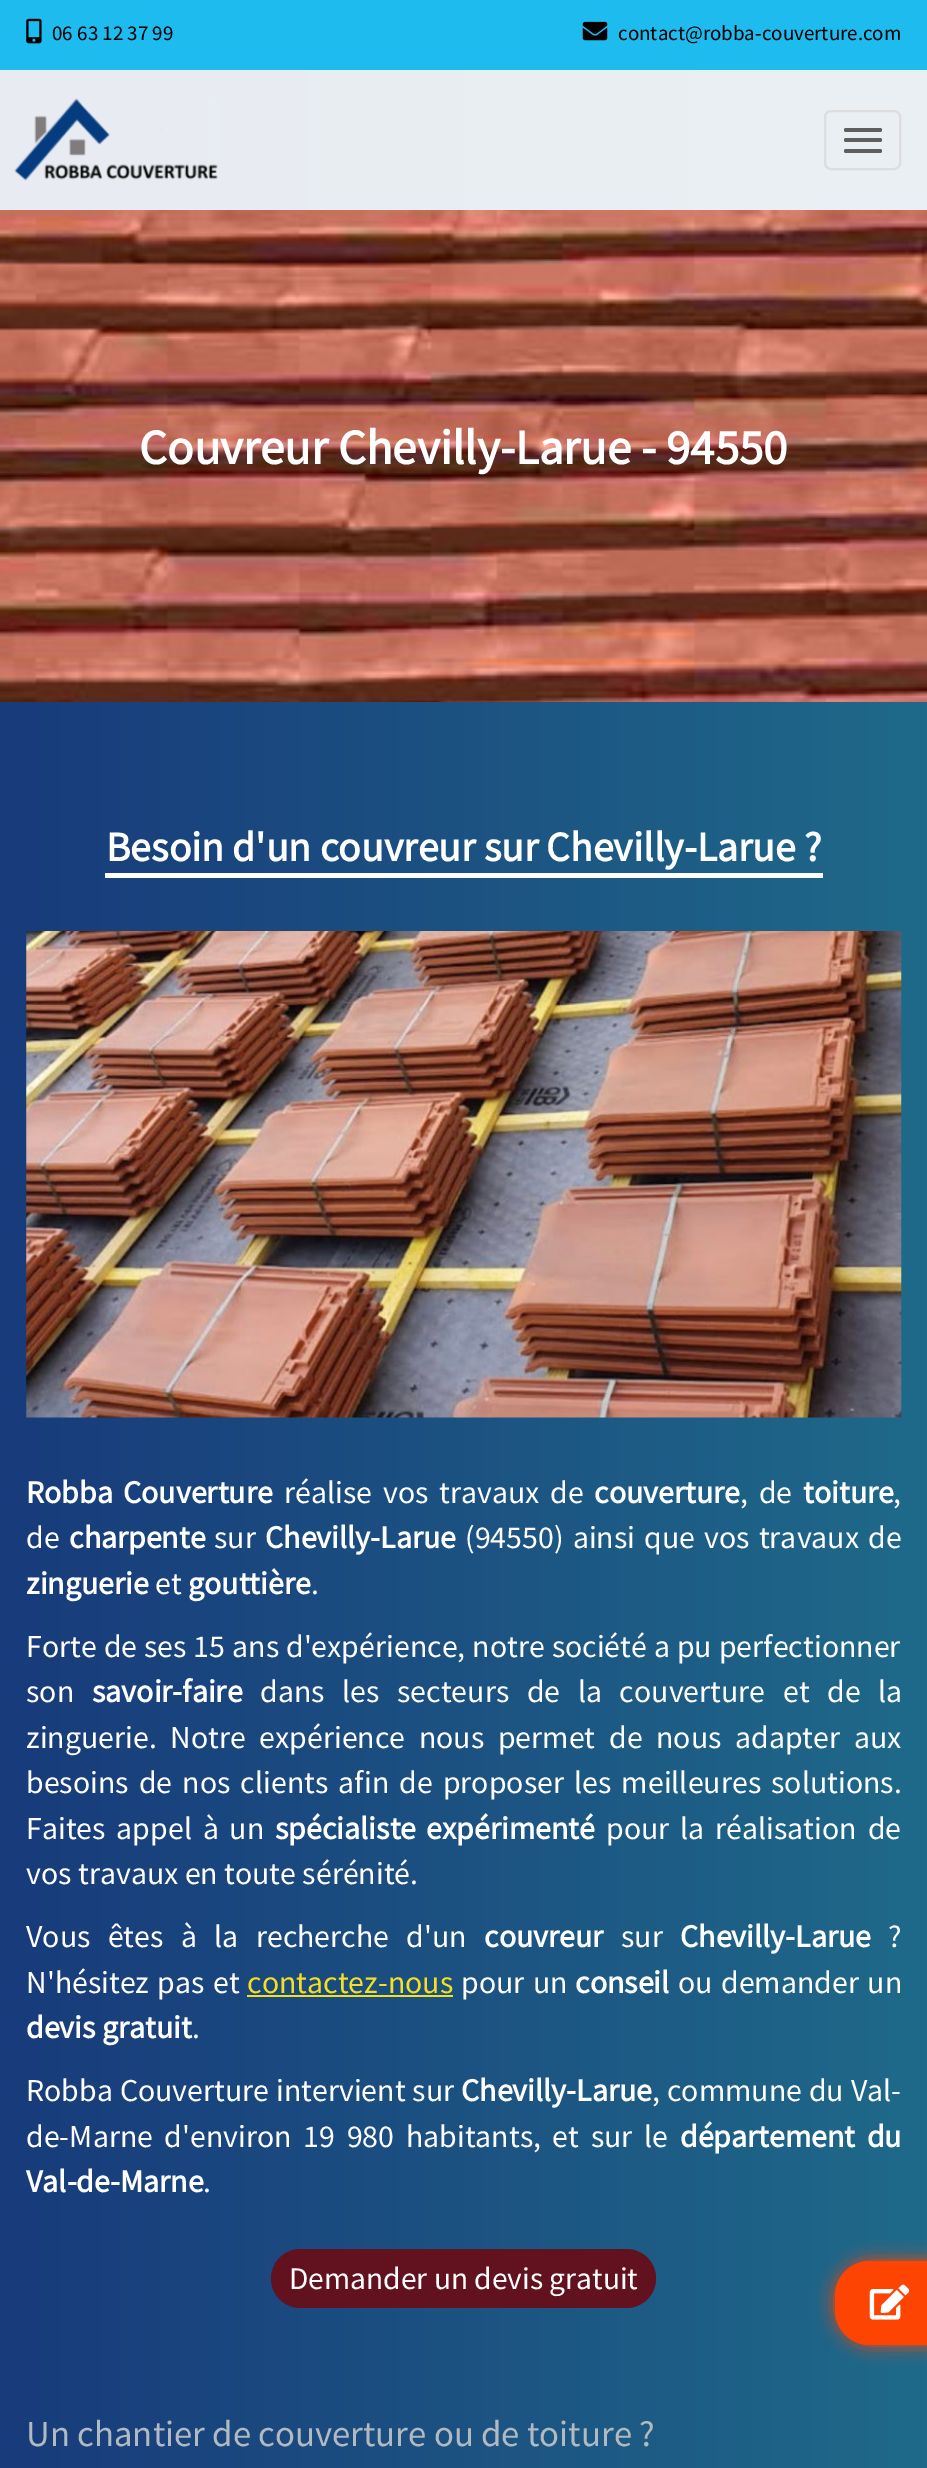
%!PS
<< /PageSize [927 2468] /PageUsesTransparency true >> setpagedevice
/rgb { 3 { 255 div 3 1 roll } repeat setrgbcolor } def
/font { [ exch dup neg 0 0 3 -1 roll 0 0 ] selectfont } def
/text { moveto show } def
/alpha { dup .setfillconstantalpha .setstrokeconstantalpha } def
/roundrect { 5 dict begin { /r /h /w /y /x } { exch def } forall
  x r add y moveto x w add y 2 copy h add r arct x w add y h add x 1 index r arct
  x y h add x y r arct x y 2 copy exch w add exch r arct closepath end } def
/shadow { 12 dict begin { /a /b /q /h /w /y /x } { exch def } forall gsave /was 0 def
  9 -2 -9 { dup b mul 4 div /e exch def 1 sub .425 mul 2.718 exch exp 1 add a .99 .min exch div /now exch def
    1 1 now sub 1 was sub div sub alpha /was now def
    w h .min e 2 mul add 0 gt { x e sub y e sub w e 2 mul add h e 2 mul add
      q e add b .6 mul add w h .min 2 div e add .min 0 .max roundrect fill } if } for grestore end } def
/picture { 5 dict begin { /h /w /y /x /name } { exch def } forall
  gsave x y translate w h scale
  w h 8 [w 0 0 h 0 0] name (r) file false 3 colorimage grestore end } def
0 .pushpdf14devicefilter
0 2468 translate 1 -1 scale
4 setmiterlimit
255 255 255 rgb
0 0 927 2468 rectfill
gsave 0 702 moveto 927 0 rlineto 0 1766 rlineto -927 0 rlineto closepath clip newpath
<< /ShadingType 2 /ColorSpace /DeviceRGB /Coords [0 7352 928 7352] /Extend [true true] /Function << /FunctionType 2 /Domain [0 1] /C0 [0.094 0.231 0.482] /C1 [0.122 0.416 0.541] /N 1 >> >> shfill grestore
gsave 0 70 moveto 927 0 rlineto 0 140 rlineto -927 0 rlineto closepath clip newpath
<< /ShadingType 2 /ColorSpace /DeviceRGB /Coords [0 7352 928 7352] /Extend [true true] /Function << /FunctionType 2 /Domain [0 1] /C0 [0.91 0.922 0.949] /C1 [0.914 0.941 0.953] /N 1 >> >> shfill grestore
29 187 238 rgb
0 0 927 70 rectfill
(img_01.rgb) 26 18 16 26 picture
(img_02.rgb) 582 21 26 20 picture
(img_03.rgb) 14 98 204 83 picture
221 221 221 rgb
2 setlinewidth
825 111 75 58 6 roundrect stroke
95 95 95 rgb
844 128 38 4 2 roundrect fill
844 138 38 4 2 roundrect fill
844 149 38 4 2 roundrect fill
(img_04.rgb) 0 210 927 492 picture
255 255 255 rgb
105 873 718 5 rectfill
(img_05.rgb) 26 931 876 487 picture
245 224 31 rgb
247 1995 206 2 rectfill
98 17 30 rgb
271 2249 385 59 29.5 roundrect fill
254 68 3 rgb
835 2261 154 84 35 9 1 shadow
870 2261 moveto 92 0 rlineto 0 84 rlineto -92 0 rlineto -19.5 0 -35 -15.5 -35 -35 rcurveto 0 -14 rlineto 0 -19.5 15.5 -35 35 -35 rcurveto closepath fill
(img_06.rgb) 869 2284 41 36 picture
/SourceSansPro-Regular 21 font
0 0 0 rgb
(06 63 12 37 99) 52 40 text
(contact@robba-couverture.com) 618 40 text
/SourceSansPro-Bold 49 font
255 255 255 rgb
(Couvreur Chevilly-Larue - 94550) 139 464 text
/SourceSansPro-Bold 41.6 font
(Besoin d'un couvreur sur Chevilly-Larue ?) 106 861 text
/SourceSansPro-Bold 31.85 font
26 1503 moveto 4 0 32 (Robba Couverture) widthshow
/SourceSansPro-Regular 31.85 font
284 1503 moveto 4.5 0 32 (réalise vos travaux de) widthshow
/SourceSansPro-Bold 31.85 font
(couverture) 594 1503 text
/SourceSansPro-Regular 31.85 font
740 1503 moveto 4.5 0 32 (, de) widthshow
/SourceSansPro-Bold 31.85 font
(toiture) 803 1503 text
/SourceSansPro-Regular 31.85 font
(,) 893 1503 text
(de) 26 1548 text
/SourceSansPro-Bold 31.85 font
(charpente) 69 1548 text
/SourceSansPro-Regular 31.85 font
(sur) 214 1548 text
/SourceSansPro-Bold 31.85 font
(Chevilly-Larue) 265 1548 text
/SourceSansPro-Regular 31.85 font
465 1548 moveto 2.75 0 32 (\(94550\) ainsi que vos travaux de) widthshow
/SourceSansPro-Bold 31.85 font
(zinguerie) 26 1594 text
/SourceSansPro-Regular 31.85 font
(et) 155 1594 text
/SourceSansPro-Bold 31.85 font
(gouttière) 188 1594 text
/SourceSansPro-Regular 31.85 font
(.) 311 1594 text
26 1657 moveto 0.6 0 32 (Forte de ses 15 ans d'expérience, notre société a pu perfectionner) widthshow
(son) 26 1702 text
/SourceSansPro-Bold 31.85 font
(savoir-faire) 92 1702 text
/SourceSansPro-Regular 31.85 font
260 1702 moveto 11.25 0 32 (dans les secteurs de la couverture et de la) widthshow
26 1748 moveto 7.25 0 32 (zinguerie. Notre expérience nous permet de nous adapter aux) widthshow
26 1793 moveto 3.75 0 32 (besoins de nos clients afin de proposer les meilleures solutions.) widthshow
26 1839 moveto 4.5 0 32 (Faites appel à un) widthshow
/SourceSansPro-Bold 31.85 font
275 1839 moveto 4 0 32 (spécialiste expérimenté) widthshow
/SourceSansPro-Regular 31.85 font
606 1839 moveto 4.5 0 32 (pour la réalisation de) widthshow
(vos travaux en toute sérénité.) 26 1884 text
26 1947 moveto 11 0 32 (Vous êtes à la recherche d'un) widthshow
/SourceSansPro-Bold 31.85 font
(couvreur) 484 1947 text
/SourceSansPro-Regular 31.85 font
(sur) 621 1947 text
/SourceSansPro-Bold 31.85 font
(Chevilly-Larue) 680 1947 text
/SourceSansPro-Regular 31.85 font
(?) 888 1947 text
26 1993 moveto 2 0 32 (N'hésitez pas et) widthshow
245 224 31 rgb
(contactez-nous) 247 1993 text
255 255 255 rgb
461 1993 moveto 2 0 32 (pour un) widthshow
/SourceSansPro-Bold 31.85 font
(conseil) 575 1993 text
/SourceSansPro-Regular 31.85 font
678 1993 moveto 2 0 32 (ou demander un) widthshow
/SourceSansPro-Bold 31.85 font
(devis gratuit) 26 2038 text
/SourceSansPro-Regular 31.85 font
(.) 192 2038 text
26 2101 moveto 0.5 0 32 (Robba Couverture intervient sur) widthshow
/SourceSansPro-Bold 31.85 font
(Chevilly-Larue) 461 2101 text
/SourceSansPro-Regular 31.85 font
652 2101 moveto 0.5 0 32 (, commune du Val-) widthshow
26 2147 moveto 5.25 0 32 (de-Marne d'environ 19 980 habitants, et sur le) widthshow
/SourceSansPro-Bold 31.85 font
680 2147 moveto 5 0 32 (département du) widthshow
(Val-de-Marne) 26 2192 text
/SourceSansPro-Regular 31.85 font
(.) 203 2192 text
/SourceSansPro-Regular 31.5 font
(Demander un devis gratuit) 289 2289 text
/SourceSansPro-Regular 36.75 font
177 185 193 rgb
(Un chantier de couverture ou de toiture ?) 26 2446 text
.poppdf14devicefilter showpage
